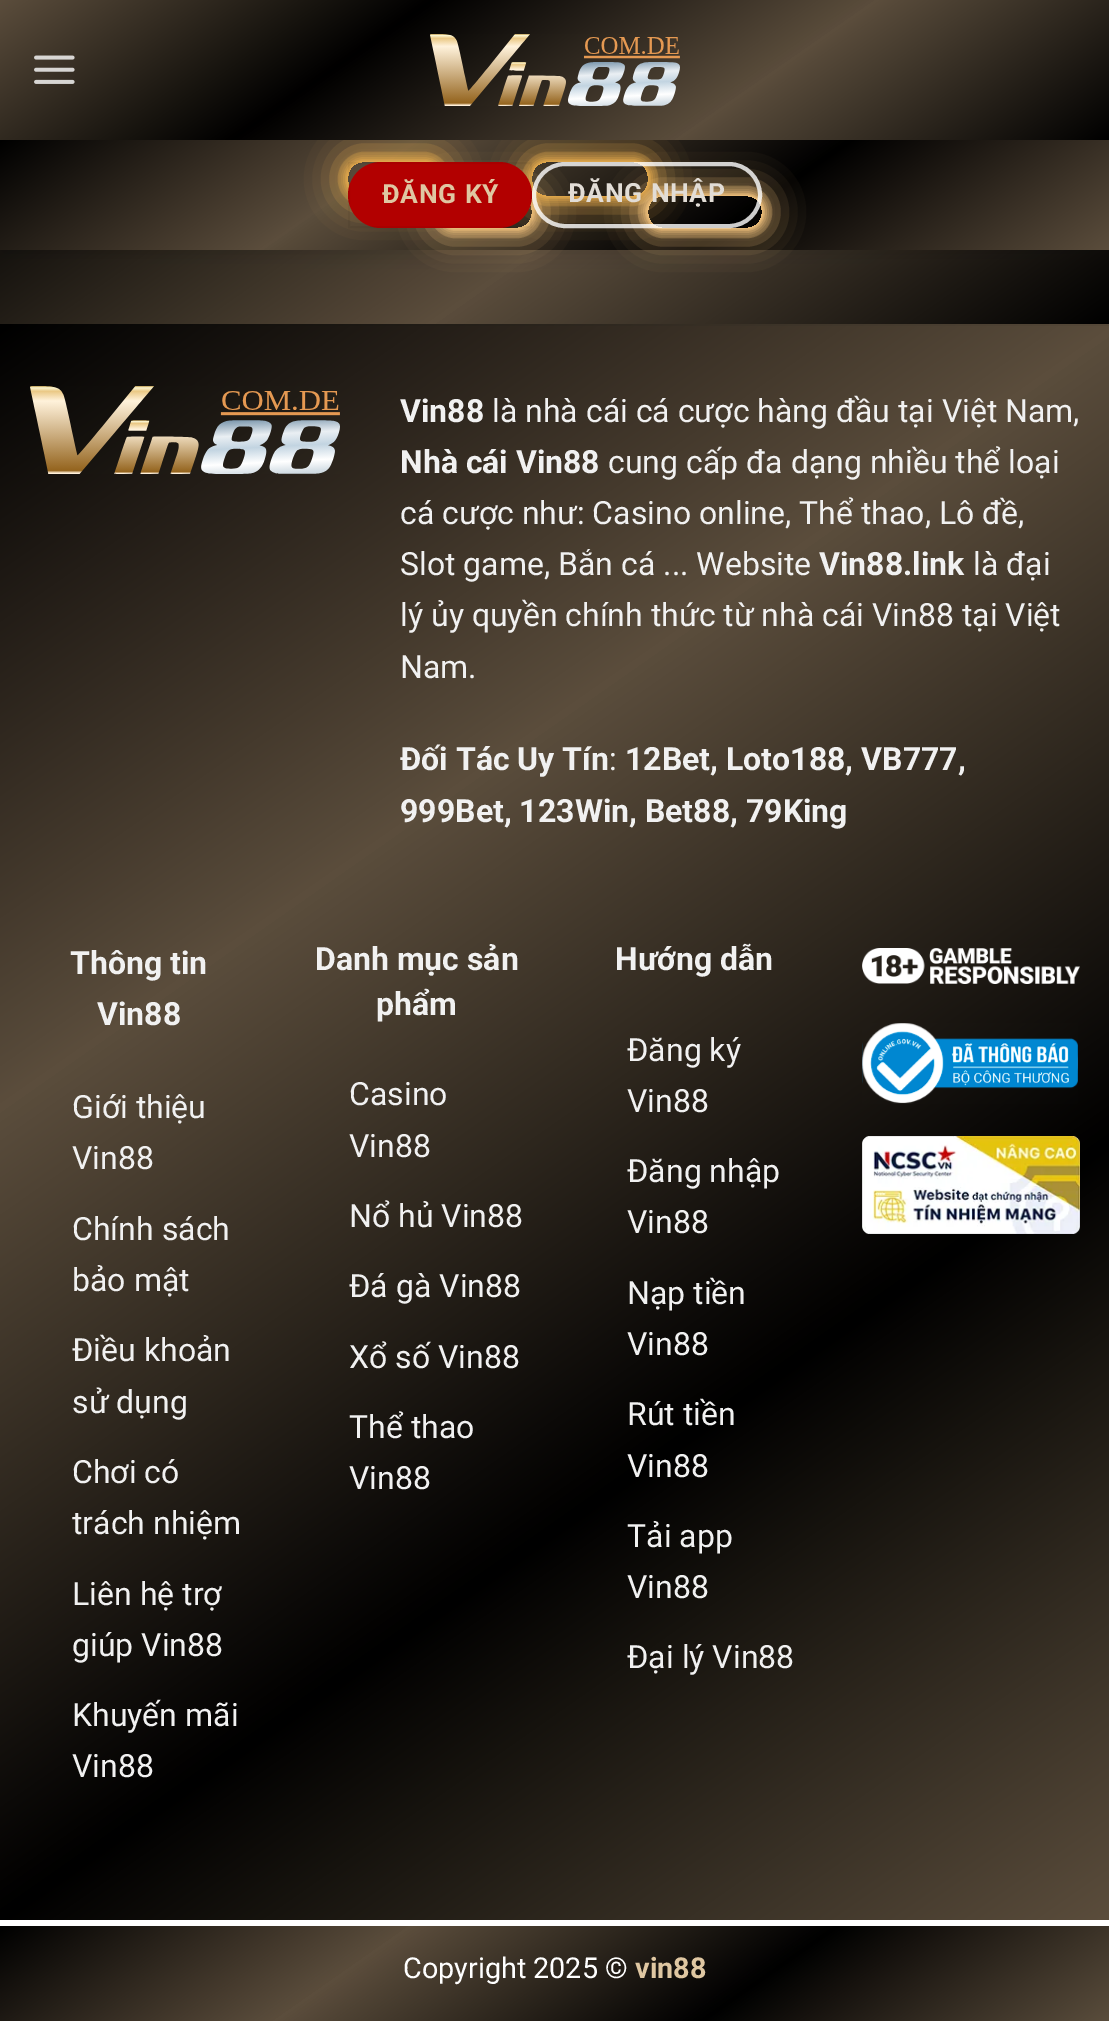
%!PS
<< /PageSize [1109 2021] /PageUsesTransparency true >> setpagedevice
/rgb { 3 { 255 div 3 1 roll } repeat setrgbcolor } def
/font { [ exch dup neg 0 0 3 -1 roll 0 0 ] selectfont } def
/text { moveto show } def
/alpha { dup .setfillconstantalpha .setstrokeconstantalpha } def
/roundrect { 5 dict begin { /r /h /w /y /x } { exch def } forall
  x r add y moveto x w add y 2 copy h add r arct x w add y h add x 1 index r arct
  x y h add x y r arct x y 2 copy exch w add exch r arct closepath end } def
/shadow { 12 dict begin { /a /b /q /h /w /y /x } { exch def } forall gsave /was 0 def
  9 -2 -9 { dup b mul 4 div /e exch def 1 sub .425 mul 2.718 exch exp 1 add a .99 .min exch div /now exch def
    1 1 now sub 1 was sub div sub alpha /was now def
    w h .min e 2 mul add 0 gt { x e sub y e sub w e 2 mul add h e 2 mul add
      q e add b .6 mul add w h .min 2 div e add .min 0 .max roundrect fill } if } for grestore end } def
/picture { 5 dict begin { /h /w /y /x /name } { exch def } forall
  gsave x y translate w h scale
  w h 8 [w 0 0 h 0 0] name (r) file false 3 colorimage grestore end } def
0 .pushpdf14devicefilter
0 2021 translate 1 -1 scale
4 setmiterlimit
255 255 255 rgb
0 0 1109 2021 rectfill
gsave 0 250 moveto 1109 0 rlineto 0 74 rlineto -1109 0 rlineto closepath clip newpath
<< /ShadingType 2 /ColorSpace /DeviceRGB /Coords [216 -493 894 475] /Extend [true true] /Function << /FunctionType 3 /Domain [0 1] /Functions [<< /FunctionType 2 /Domain [0 1] /C0 [0.357 0.302 0.235] /C1 [0 0 0] /N 1 >> << /FunctionType 2 /Domain [0 1] /C0 [0 0 0] /C1 [0.357 0.302 0.235] /N 1 >> << /FunctionType 2 /Domain [0 1] /C0 [0.357 0.302 0.235] /C1 [0 0 0] /N 1 >>] /Bounds [0.33 0.67] /Encode [0 1 0 1 0 1] >> >> shfill grestore
0 0 0 rgb
2 2 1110 250 0 10 0.15 shadow
gsave 0 140 moveto 1109 0 rlineto 0 110 rlineto -1109 0 rlineto closepath clip newpath
<< /ShadingType 2 /ColorSpace /DeviceRGB /Coords [347 -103 763 493] /Extend [true true] /Function << /FunctionType 3 /Domain [0 1] /Functions [<< /FunctionType 2 /Domain [0 1] /C0 [0 0 0] /C1 [0.357 0.302 0.235] /N 1 >> << /FunctionType 2 /Domain [0 1] /C0 [0.357 0.302 0.235] /C1 [0 0 0] /N 1 >> << /FunctionType 2 /Domain [0 1] /C0 [0 0 0] /C1 [0.357 0.302 0.235] /N 1 >>] /Bounds [0.33 0.67] /Encode [0 1 0 1 0 1] >> >> shfill grestore
gsave
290 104 moveto 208 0 rlineto 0 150 rlineto -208 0 rlineto closepath 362 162 moveto 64 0 rlineto 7.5 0 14 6.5 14 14 rcurveto 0 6 rlineto 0 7.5 -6.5 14 -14 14 rcurveto -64 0 rlineto -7.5 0 -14 -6.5 -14 -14 rcurveto 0 -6 rlineto 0 -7.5 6.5 -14 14 -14 rcurveto closepath eoclip newpath
229 170 76 rgb
342 156 104 46 20 17 1 shadow
grestore
gsave
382 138 moveto 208 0 rlineto 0 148 rlineto -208 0 rlineto closepath 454 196 moveto 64 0 rlineto 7.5 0 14 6.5 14 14 rcurveto 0 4 rlineto 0 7.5 -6.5 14 -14 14 rcurveto -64 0 rlineto -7.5 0 -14 -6.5 -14 -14 rcurveto 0 -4 rlineto 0 -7.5 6.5 -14 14 -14 rcurveto closepath eoclip newpath
242 194 124 rgb
434 190 104 44 20 17 1 shadow
grestore
gsave
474 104 moveto 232 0 rlineto 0 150 rlineto -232 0 rlineto closepath 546 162 moveto 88 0 rlineto 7.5 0 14 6.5 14 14 rcurveto 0 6 rlineto 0 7.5 -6.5 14 -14 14 rcurveto -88 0 rlineto -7.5 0 -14 -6.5 -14 -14 rcurveto 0 -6 rlineto 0 -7.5 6.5 -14 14 -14 rcurveto closepath eoclip newpath
229 170 76 rgb
526 156 128 46 20 17 1 shadow
grestore
gsave
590 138 moveto 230 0 rlineto 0 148 rlineto -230 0 rlineto closepath 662 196 moveto 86 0 rlineto 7.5 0 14 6.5 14 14 rcurveto 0 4 rlineto 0 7.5 -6.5 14 -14 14 rcurveto -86 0 rlineto -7.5 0 -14 -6.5 -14 -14 rcurveto 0 -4 rlineto 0 -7.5 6.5 -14 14 -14 rcurveto closepath eoclip newpath
242 194 124 rgb
642 190 126 44 20 17 1 shadow
grestore
gsave 0 0 moveto 1109 0 rlineto 0 140 rlineto -1109 0 rlineto closepath clip newpath
<< /ShadingType 2 /ColorSpace /DeviceRGB /Coords [340 -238 770 378] /Extend [true true] /Function << /FunctionType 3 /Domain [0 1] /Functions [<< /FunctionType 2 /Domain [0 1] /C0 [0.357 0.302 0.235] /C1 [0 0 0] /N 1 >> << /FunctionType 2 /Domain [0 1] /C0 [0 0 0] /C1 [0.357 0.302 0.235] /N 1 >> << /FunctionType 2 /Domain [0 1] /C0 [0.357 0.302 0.235] /C1 [0 0 0] /N 1 >>] /Bounds [0.33 0.67] /Encode [0 1 0 1 0 1] >> >> shfill grestore
(img_01.rgb) 34 55 41 29 picture
(img_02.rgb) 430 34 250 72 picture
gsave
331 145 moveto 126 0 rlineto 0 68 rlineto -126 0 rlineto closepath 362 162 moveto 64 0 rlineto 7.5 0 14 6.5 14 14 rcurveto 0 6 rlineto 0 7.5 -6.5 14 -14 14 rcurveto -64 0 rlineto -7.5 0 -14 -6.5 -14 -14 rcurveto 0 -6 rlineto 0 -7.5 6.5 -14 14 -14 rcurveto closepath eoclip newpath
229 170 76 rgb
344 158 100 42 18 4 1 shadow
grestore
gsave
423 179 moveto 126 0 rlineto 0 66 rlineto -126 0 rlineto closepath 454 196 moveto 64 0 rlineto 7.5 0 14 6.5 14 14 rcurveto 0 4 rlineto 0 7.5 -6.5 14 -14 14 rcurveto -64 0 rlineto -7.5 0 -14 -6.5 -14 -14 rcurveto 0 -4 rlineto 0 -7.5 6.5 -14 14 -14 rcurveto closepath eoclip newpath
242 194 124 rgb
436 192 100 40 18 4 1 shadow
grestore
gsave
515 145 moveto 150 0 rlineto 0 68 rlineto -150 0 rlineto closepath 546 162 moveto 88 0 rlineto 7.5 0 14 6.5 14 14 rcurveto 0 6 rlineto 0 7.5 -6.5 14 -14 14 rcurveto -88 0 rlineto -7.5 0 -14 -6.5 -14 -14 rcurveto 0 -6 rlineto 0 -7.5 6.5 -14 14 -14 rcurveto closepath eoclip newpath
229 170 76 rgb
528 158 124 42 18 4 1 shadow
grestore
178 0 0 rgb
348 162 184 66 33 roundrect fill
0.05 alpha
0 0 0 rgb
2 setlinewidth
349 163 182 64 rectstroke
gsave
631 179 moveto 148 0 rlineto 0 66 rlineto -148 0 rlineto closepath 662 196 moveto 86 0 rlineto 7.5 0 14 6.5 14 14 rcurveto 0 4 rlineto 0 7.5 -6.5 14 -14 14 rcurveto -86 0 rlineto -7.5 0 -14 -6.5 -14 -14 rcurveto 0 -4 rlineto 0 -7.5 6.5 -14 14 -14 rcurveto closepath eoclip newpath
1 alpha
242 194 124 rgb
644 192 122 40 18 4 1 shadow
grestore
0.8 alpha
255 255 255 rgb
4 setlinewidth
534 164 226 62 31 roundrect stroke
1 alpha
gsave 0 324 moveto 1109 0 rlineto 0 2 rlineto -1109 0 rlineto closepath clip newpath
<< /ShadingType 2 /ColorSpace /DeviceRGB /Coords [-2.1 -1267 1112 325] /Extend [true true] /Function << /FunctionType 3 /Domain [0 1] /Functions [<< /FunctionType 2 /Domain [0 1] /C0 [0 0 0] /C1 [0.337 0.286 0.224] /N 1 >> << /FunctionType 2 /Domain [0 1] /C0 [0.337 0.286 0.224] /C1 [0 0 0] /N 1 >> << /FunctionType 2 /Domain [0 1] /C0 [0 0 0] /C1 [0.337 0.286 0.224] /N 1 >>] /Bounds [0.33 0.67] /Encode [0 1 0 1 0 1] >> >> shfill grestore
gsave 0 326 moveto 1109 0 rlineto 0 1594 rlineto -1109 0 rlineto closepath clip newpath
<< /ShadingType 2 /ColorSpace /DeviceRGB /Coords [-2.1 327 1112 1919] /Extend [true true] /Function << /FunctionType 3 /Domain [0 1] /Functions [<< /FunctionType 2 /Domain [0 1] /C0 [0 0 0] /C1 [0.357 0.302 0.235] /N 1 >> << /FunctionType 2 /Domain [0 1] /C0 [0.357 0.302 0.235] /C1 [0 0 0] /N 1 >> << /FunctionType 2 /Domain [0 1] /C0 [0 0 0] /C1 [0.357 0.302 0.235] /N 1 >>] /Bounds [0.33 0.67] /Encode [0 1 0 1 0 1] >> >> shfill grestore
(img_03.rgb) 30 386 310 88 picture
(img_04.rgb) 862 948 218 36 picture
(img_05.rgb) 862 1023 216 81 picture
(img_06.rgb) 862 1136 218 98 picture
gsave 0 1926 moveto 1109 0 rlineto 0 95 rlineto -1109 0 rlineto closepath clip newpath
<< /ShadingType 2 /ColorSpace /DeviceRGB /Coords [350 1681 760 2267] /Extend [true true] /Function << /FunctionType 3 /Domain [0 1] /Functions [<< /FunctionType 2 /Domain [0 1] /C0 [0 0 0] /C1 [0.357 0.302 0.235] /N 1 >> << /FunctionType 2 /Domain [0 1] /C0 [0.357 0.302 0.235] /C1 [0 0 0] /N 1 >> << /FunctionType 2 /Domain [0 1] /C0 [0 0 0] /C1 [0.357 0.302 0.235] /N 1 >>] /Bounds [0.33 0.67] /Encode [0 1 0 1 0 1] >> >> shfill grestore
/Roboto-Bold 26.5 font
223 199 162 rgb
382 203 moveto 0.75 0 (ĐĂNG KÝ) ashow
226 221 214 rgb
568 202 moveto 0.75 0 (ĐĂNG NHẬP) ashow
/Roboto-Bold 32 font
241 241 241 rgb
(Vin88) 400 422 text
/Roboto-Regular 32 font
(là nhà cái cá cược hàng đầu tại Việt Nam,) 492 422 text
/Roboto-Bold 32 font
(Nhà cái Vin88) 400 473 text
/Roboto-Regular 32 font
(cung cấp đa dạng nhiều thể loại) 608 473 text
(cá cược như: Casino online, Thể thao, Lô đề,) 400 524 text
(Slot game, Bắn cá ... Website) 400 575 text
/Roboto-Bold 32 font
(Vin88.link) 819 575 text
/Roboto-Regular 32 font
(là đại) 973 575 text
(lý ủy quyền chính thức từ nhà cái Vin88 tại Việt) 400 626 text
(Nam.) 400 678 text
/Roboto-Bold 32 font
(Đối Tác Uy Tín) 400 770 text
/Roboto-Regular 32 font
(:) 609 770 text
/Roboto-Bold 32 font
(12Bet, Loto188, VB777,) 625 770 text
(999Bet, 123Win, Bet88, 79King) 400 822 text
(Thông tin) 70 974 text
(Vin88) 97 1025 text
/Roboto-Regular 32 font
(Giới thiệu) 72 1118 text
(Vin88) 72 1169 text
(Chính sách) 72 1240 text
(bảo mật) 72 1291 text
(Điều khoản) 72 1361 text
(sử dụng) 72 1413 text
(Chơi có) 72 1483 text
(trách nhiệm) 72 1534 text
(Liên hệ trợ) 72 1605 text
(giúp Vin88) 72 1656 text
(Khuyến mãi) 72 1726 text
(Vin88) 72 1777 text
/Roboto-Bold 32 font
(Danh mục sản) 315 970 text
(phẩm) 376 1015 text
/Roboto-Regular 32 font
(Casino) 349 1105 text
(Vin88) 349 1157 text
(Nổ hủ Vin88) 349 1227 text
(Đá gà Vin88) 349 1297 text
(Xổ số Vin88) 349 1368 text
(Thể thao) 349 1438 text
(Vin88) 349 1489 text
/Roboto-Bold 32 font
(Hướng dẫn) 615 970 text
/Roboto-Regular 32 font
(Đăng ký) 627 1061 text
(Vin88) 627 1112 text
(Đăng nhập) 627 1182 text
(Vin88) 627 1233 text
(Nạp tiền) 627 1304 text
(Vin88) 627 1355 text
(Rút tiền) 627 1425 text
(Vin88) 627 1477 text
(Tải app) 627 1547 text
(Vin88) 627 1598 text
(Đại lý Vin88) 627 1668 text
/Roboto-Regular 28.75 font
255 255 255 rgb
(Copyright 2025 ©) 403 1978 text
/Roboto-Bold 28.75 font
223 199 162 rgb
(vin88) 635 1978 text
.poppdf14devicefilter showpage
